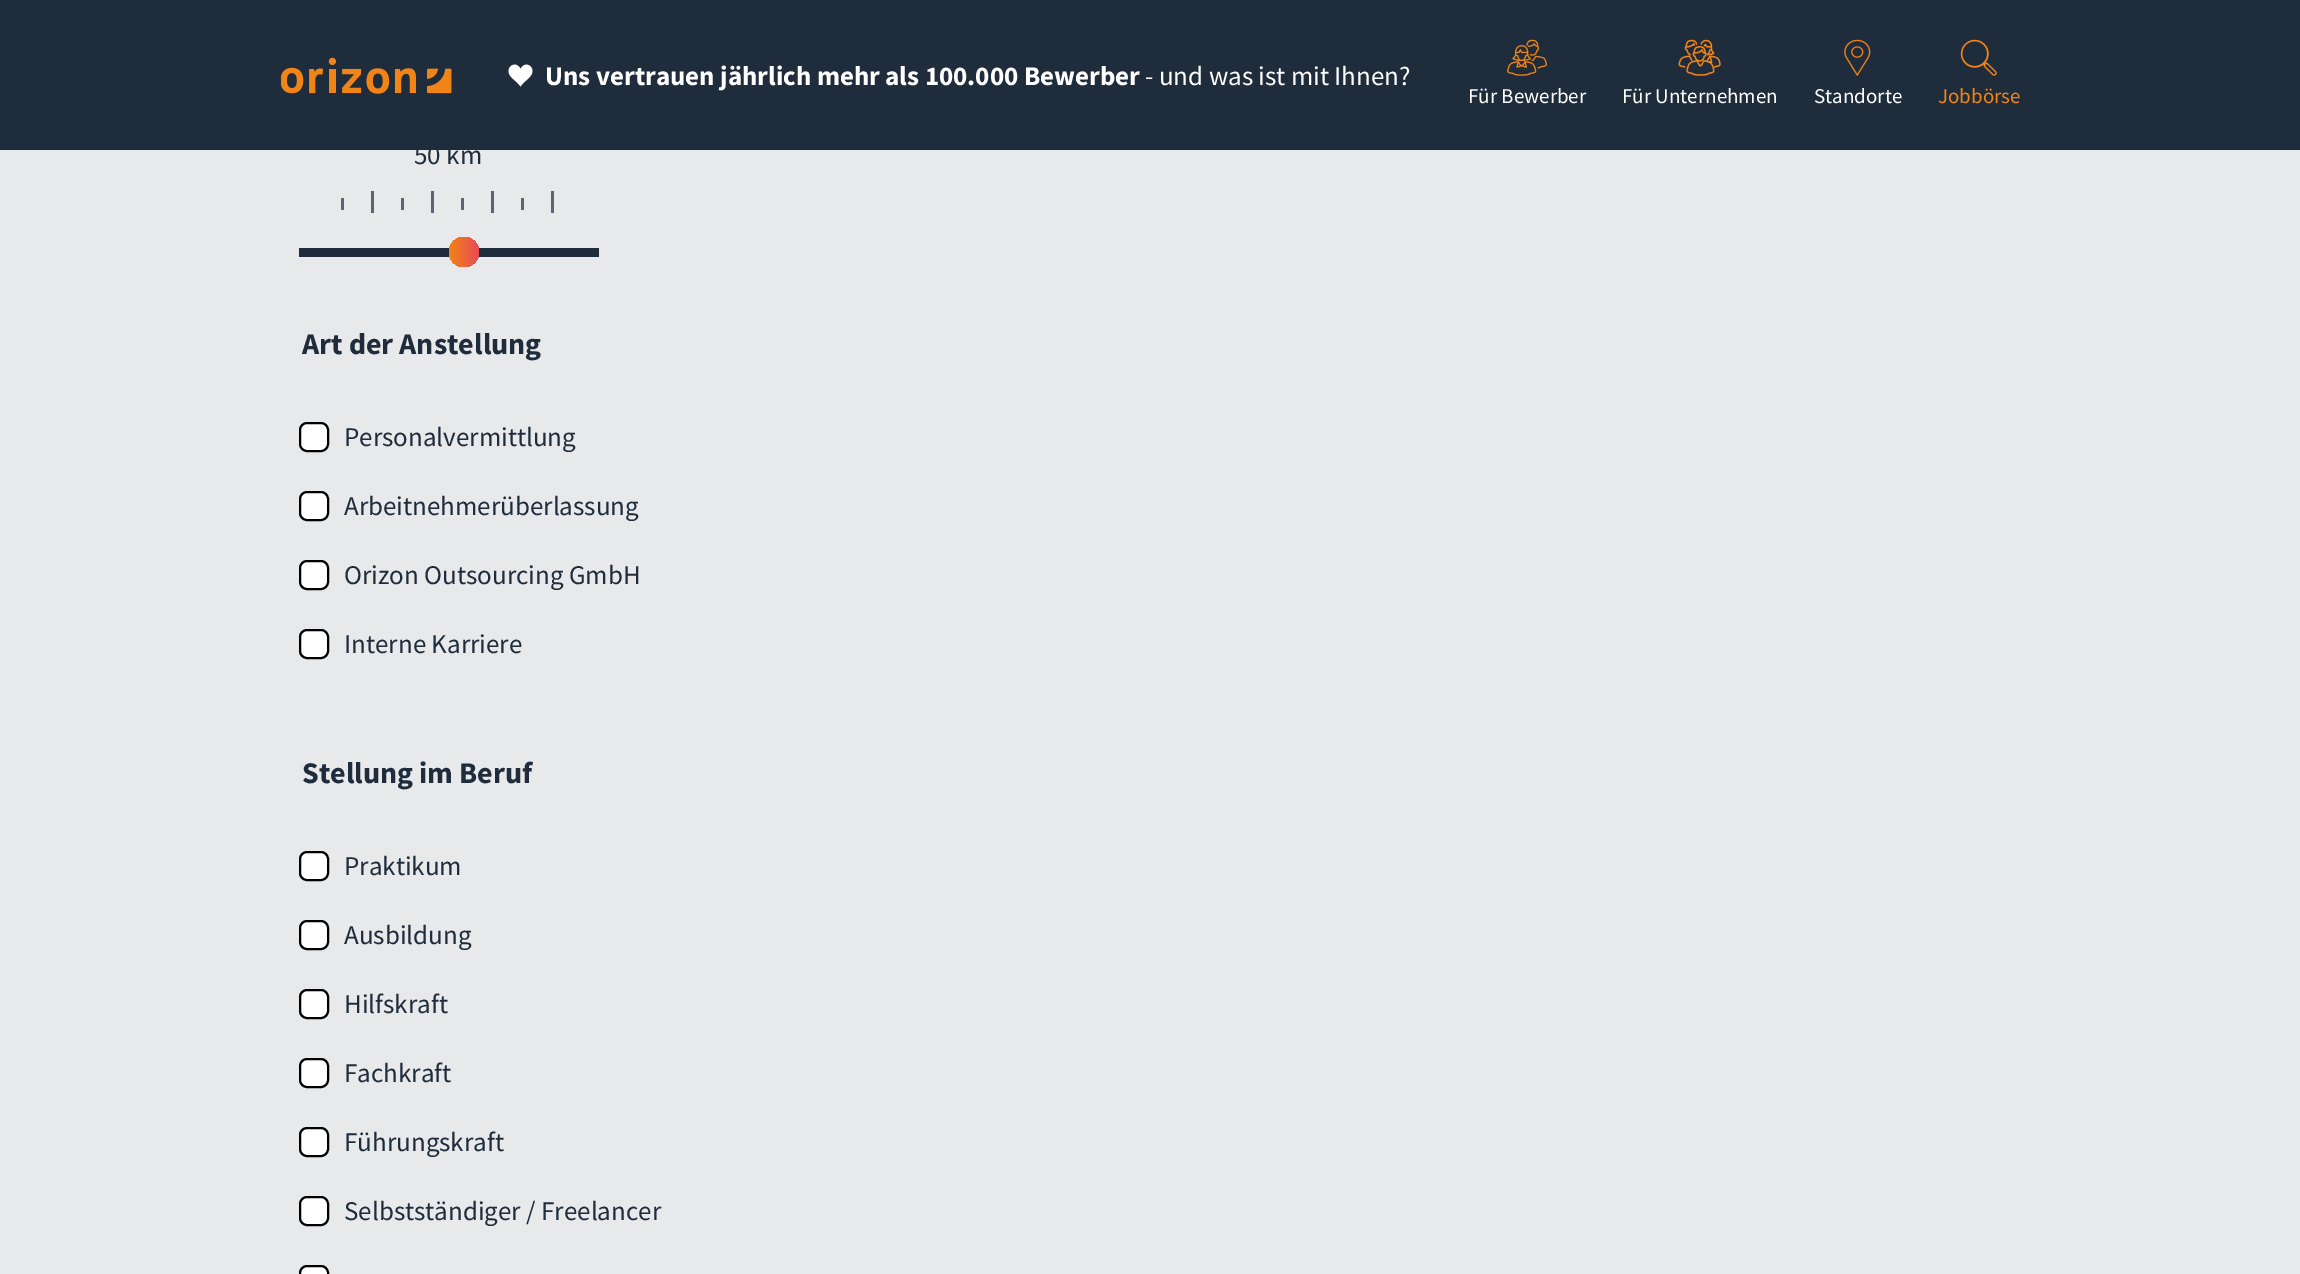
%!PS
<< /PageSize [2300 1274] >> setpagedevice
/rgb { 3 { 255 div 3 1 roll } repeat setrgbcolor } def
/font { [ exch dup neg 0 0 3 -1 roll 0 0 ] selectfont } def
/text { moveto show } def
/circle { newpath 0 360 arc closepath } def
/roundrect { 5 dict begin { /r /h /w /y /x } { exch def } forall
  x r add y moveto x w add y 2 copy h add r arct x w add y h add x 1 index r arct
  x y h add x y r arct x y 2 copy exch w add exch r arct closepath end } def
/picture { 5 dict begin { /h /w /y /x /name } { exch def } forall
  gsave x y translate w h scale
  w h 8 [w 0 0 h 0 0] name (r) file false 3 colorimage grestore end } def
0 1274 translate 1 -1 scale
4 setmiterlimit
232 233 235 rgb
0 0 2300 1274 rectfill
31 44 60 rgb
0 0 2300 150 rectfill
(img_01.rgb) 281 57 171 37 picture
(img_02.rgb) 508 64 25 23 picture
(img_03.rgb) 1507 39 40 37 picture
(img_04.rgb) 1678 39 43 37 picture
(img_05.rgb) 1844 39 27 37 picture
(img_06.rgb) 1960 39 37 37 picture
91 101 113 rgb
341 198 3 12 rectfill
371 191 3 22 rectfill
401 198 3 12 rectfill
431 191 3 22 rectfill
461 198 3 12 rectfill
491 191 3 22 rectfill
521 198 3 12 rectfill
551 191 3 22 rectfill
31 44 60 rgb
299 248 300 9 rectfill
gsave 464 252 15 circle clip newpath
<< /ShadingType 2 /ColorSpace /DeviceRGB /Coords [449 252 479 252] /Extend [true true] /Function << /FunctionType 2 /Domain [0 1] /C0 [0.945 0.518 0.086] /C1 [0.914 0.294 0.337] /N 1 >> >> shfill grestore
255 255 255 rgb
300 423 28 28 7 roundrect gsave fill grestore
0 0 0 rgb
2 setlinewidth
stroke
255 255 255 rgb
300 492 28 28 7 roundrect gsave fill grestore
0 0 0 rgb
stroke
255 255 255 rgb
300 561 28 28 7 roundrect gsave fill grestore
0 0 0 rgb
stroke
255 255 255 rgb
300 630 28 28 7 roundrect gsave fill grestore
0 0 0 rgb
stroke
255 255 255 rgb
300 852 28 28 7 roundrect gsave fill grestore
0 0 0 rgb
stroke
255 255 255 rgb
300 921 28 28 7 roundrect gsave fill grestore
0 0 0 rgb
stroke
255 255 255 rgb
300 990 28 28 7 roundrect gsave fill grestore
0 0 0 rgb
stroke
255 255 255 rgb
300 1059 28 28 7 roundrect gsave fill grestore
0 0 0 rgb
stroke
255 255 255 rgb
300 1128 28 28 7 roundrect gsave fill grestore
0 0 0 rgb
stroke
255 255 255 rgb
300 1197 28 28 7 roundrect gsave fill grestore
0 0 0 rgb
stroke
255 255 255 rgb
300 1266 28 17 7 roundrect gsave fill grestore
0 0 0 rgb
stroke
/SourceSansPro-Bold 27 font
255 255 255 rgb
(Uns vertrauen jährlich mehr als 100.000 Bewerber) 545 85 text
/SourceSansPro-Regular 27 font
(- und was ist mit Ihnen?) 1145 85 text
/SourceSansPro-Regular 21 font
(Für Bewerber) 1468 103 text
(Für Unternehmen) 1622 103 text
(Standorte) 1814 103 text
241 132 22 rgb
(Jobbörse) 1938 103 text
/SourceSansPro-Regular 27 font
31 44 60 rgb
(50 km) 414 164 text
/SourceSansPro-Bold 30 font
(Art der Anstellung) 302 354 text
/SourceSansPro-Regular 27 font
(Personalvermittlung) 344 446 text
(Arbeitnehmerüberlassung) 344 515 text
(Orizon Outsourcing GmbH) 344 584 text
(Interne Karriere) 344 653 text
/SourceSansPro-Bold 30 font
(Stellung im Beruf) 302 783 text
/SourceSansPro-Regular 27 font
(Praktikum) 344 875 text
(Ausbildung) 344 944 text
(Hilfskraft) 344 1013 text
(Fachkraft) 344 1082 text
(Führungskraft) 344 1151 text
(Selbstständiger / Freelancer) 344 1220 text
showpage
